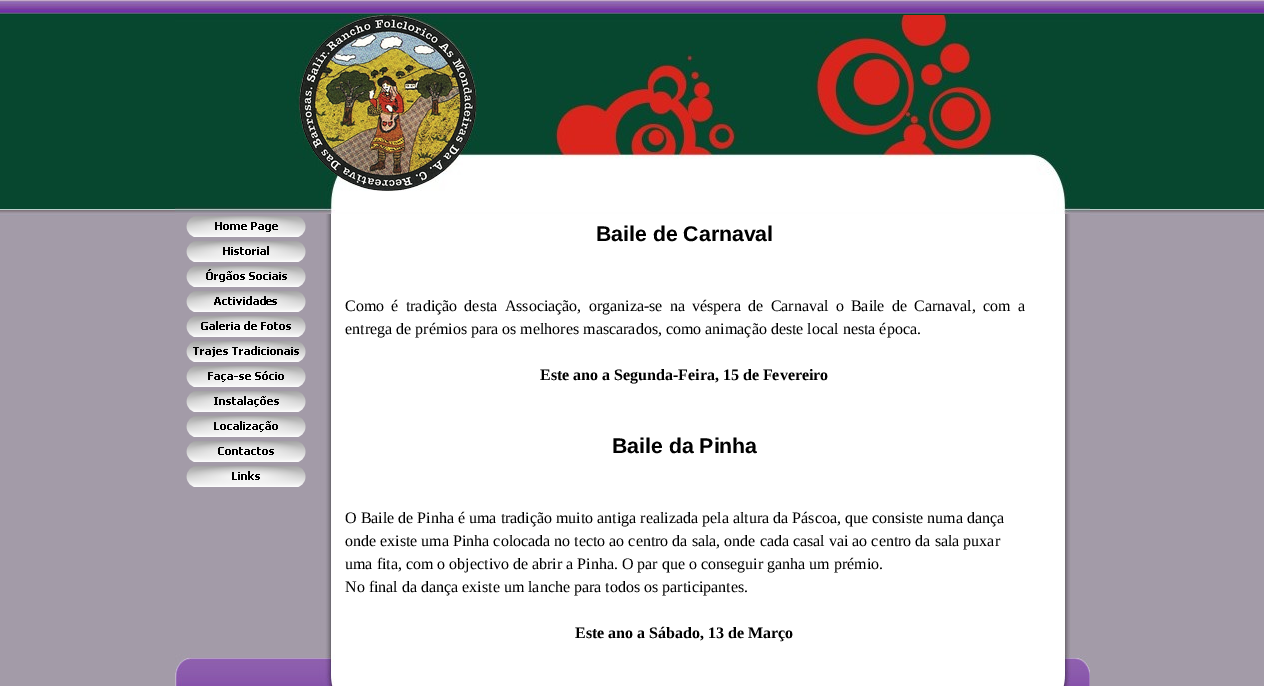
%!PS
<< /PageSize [1264 686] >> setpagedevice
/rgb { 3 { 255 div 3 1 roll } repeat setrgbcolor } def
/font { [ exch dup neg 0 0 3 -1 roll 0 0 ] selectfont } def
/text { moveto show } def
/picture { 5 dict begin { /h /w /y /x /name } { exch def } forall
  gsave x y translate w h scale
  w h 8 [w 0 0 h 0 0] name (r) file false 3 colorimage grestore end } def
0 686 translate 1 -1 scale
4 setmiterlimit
255 255 255 rgb
0 0 1264 686 rectfill
(img_01.rgb) 0 0 1264 686 picture
(img_02.rgb) 175 15 915 199 picture
(img_03.rgb) 175 214 155 440 picture
(img_04.rgb) 330 214 760 440 picture
(img_05.rgb) 186 216 120 21 picture
(img_06.rgb) 186 241 120 21 picture
(img_07.rgb) 186 266 120 21 picture
(img_08.rgb) 186 291 120 21 picture
(img_09.rgb) 186 316 120 21 picture
(img_10.rgb) 186 341 120 21 picture
(img_11.rgb) 186 366 120 21 picture
(img_12.rgb) 186 391 120 21 picture
(img_13.rgb) 186 416 120 21 picture
(img_14.rgb) 186 441 120 21 picture
(img_15.rgb) 186 466 120 21 picture
(img_16.rgb) 175 654 915 32 picture
/LiberationSans-Bold 21.25 font
0 0 0 rgb
(Baile de Carnaval) 596 241 text
/LiberationSerif-Regular 16 font
345 311 moveto 3.25 0 32 (Como é tradição desta Associação, organiza-se na véspera de Carnaval o Baile de Carnaval, com a) widthshow
(entrega de prémios para os melhores mascarados, como animação deste local nesta época.) 345 334 text
/LiberationSerif-Bold 16 font
(Este ano a Segunda-Feira, 15 de Fevereiro) 540 380 text
/LiberationSans-Bold 21.25 font
(Baile da Pinha) 612 453 text
/LiberationSerif-Regular 16 font
(O Baile de Pinha é uma tradição muito antiga realizada pela altura da Páscoa, que consiste numa dança) 345 523 text
(onde existe uma Pinha colocada no tecto ao centro da sala, onde cada casal vai ao centro da sala puxar) 345 546 text
(uma fita, com o objectivo de abrir a Pinha. O par que o conseguir ganha um prémio.) 345 569 text
(No final da dança existe um lanche para todos os participantes.) 345 592 text
/LiberationSerif-Bold 16 font
(Este ano a Sábado, 13 de Março) 575 638 text
showpage
